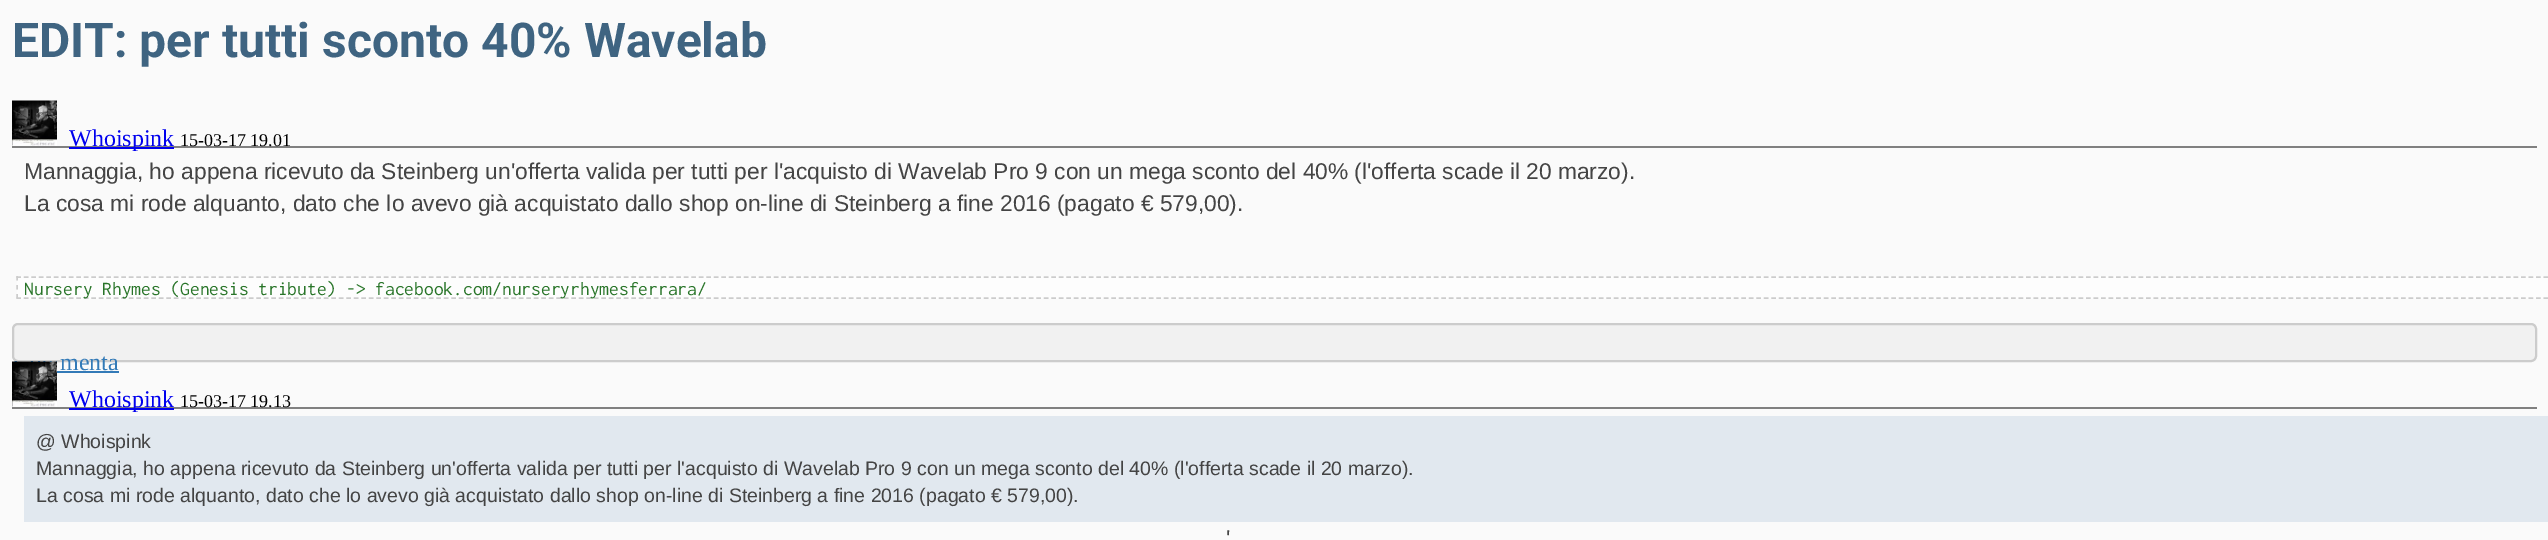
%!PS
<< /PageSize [2548 540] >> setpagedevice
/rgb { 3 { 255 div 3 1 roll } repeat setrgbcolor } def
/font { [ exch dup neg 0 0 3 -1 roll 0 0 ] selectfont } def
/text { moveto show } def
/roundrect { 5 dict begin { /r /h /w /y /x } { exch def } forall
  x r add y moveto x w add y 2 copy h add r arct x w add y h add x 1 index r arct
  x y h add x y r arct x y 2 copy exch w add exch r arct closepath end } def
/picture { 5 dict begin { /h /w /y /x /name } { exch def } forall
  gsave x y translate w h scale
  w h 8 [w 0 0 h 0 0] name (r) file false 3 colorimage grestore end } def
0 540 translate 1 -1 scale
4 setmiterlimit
250 250 250 rgb
0 0 2548 540 rectfill
128 128 128 rgb
12 146 2525 2 rectfill
(img_01.rgb) 12 100 45 46 picture
0 0 238 rgb
69 147 105 2 rectfill
253 253 253 rgb
17 276 2531 23 rectfill
204 204 204 rgb
1.5 setlinewidth
[4.5 3] 0 setdash
16.5 277 moveto 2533.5 0 rlineto stroke
16.5 298 moveto 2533.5 0 rlineto stroke
[] 0 setdash
17 276 moveto 0 4.5 rlineto 17 285 moveto 0 4.5 rlineto 17 294 moveto 0 4.5 rlineto stroke
241 241 241 rgb
13 324 2523 37 5 roundrect gsave fill grestore
204 204 204 rgb
2 setlinewidth
stroke
51 122 183 rgb
57 371 62 2 rectfill
128 128 128 rgb
12 407 2525 2 rectfill
(img_02.rgb) 12 361 45 46 picture
0 0 238 rgb
69 408 105 2 rectfill
225 232 239 rgb
24 416 2524 106 rectfill
/Roboto-Bold 48 font
63 100 129 rgb
(EDIT: per tutti sconto 40% Wavelab) 12 57 text
/LiberationSerif-Regular 24 font
0 0 238 rgb
(Whoispink) 69 146 text
/LiberationSerif-Regular 18 font
0 0 0 rgb
(15-03-17 19.01) 180 146 text
/LiberationSans-Regular 22.8 font
68 68 68 rgb
(Mannaggia, ho appena ricevuto da Steinberg un'offerta valida per tutti per l'acquisto di Wavelab Pro 9 con un mega sconto del 40% \(l'offerta scade il 20 marzo\).) 24 179 text
(La cosa mi rode alquanto, dato che lo avevo già acquistato dallo shop on-line di Steinberg a fine 2016 \(pagato € 579,00\).) 24 211 text
/Inconsolata-Regular 19.5 font
41 117 41 rgb
(Nursery Rhymes \(Genesis tribute\) -> facebook.com/nurseryrhymesferrara/) 24 295 text
/LiberationSerif-Regular 24 font
51 122 183 rgb
(menta) 60 370 text
0 0 238 rgb
(Whoispink) 69 407 text
/LiberationSerif-Regular 18 font
0 0 0 rgb
(15-03-17 19.13) 180 407 text
/LiberationSans-Regular 19.5 font
68 68 68 rgb
(@ Whoispink) 36 448 text
(Mannaggia, ho appena ricevuto da Steinberg un'offerta valida per tutti per l'acquisto di Wavelab Pro 9 con un mega sconto del 40% \(l'offerta scade il 20 marzo\).) 36 475 text
(La cosa mi rode alquanto, dato che lo avevo già acquistato dallo shop on-line di Steinberg a fine 2016 \(pagato € 579,00\).) 36 502 text
/LiberationSans-Regular 22.8 font
(') 1226 546 text
showpage
